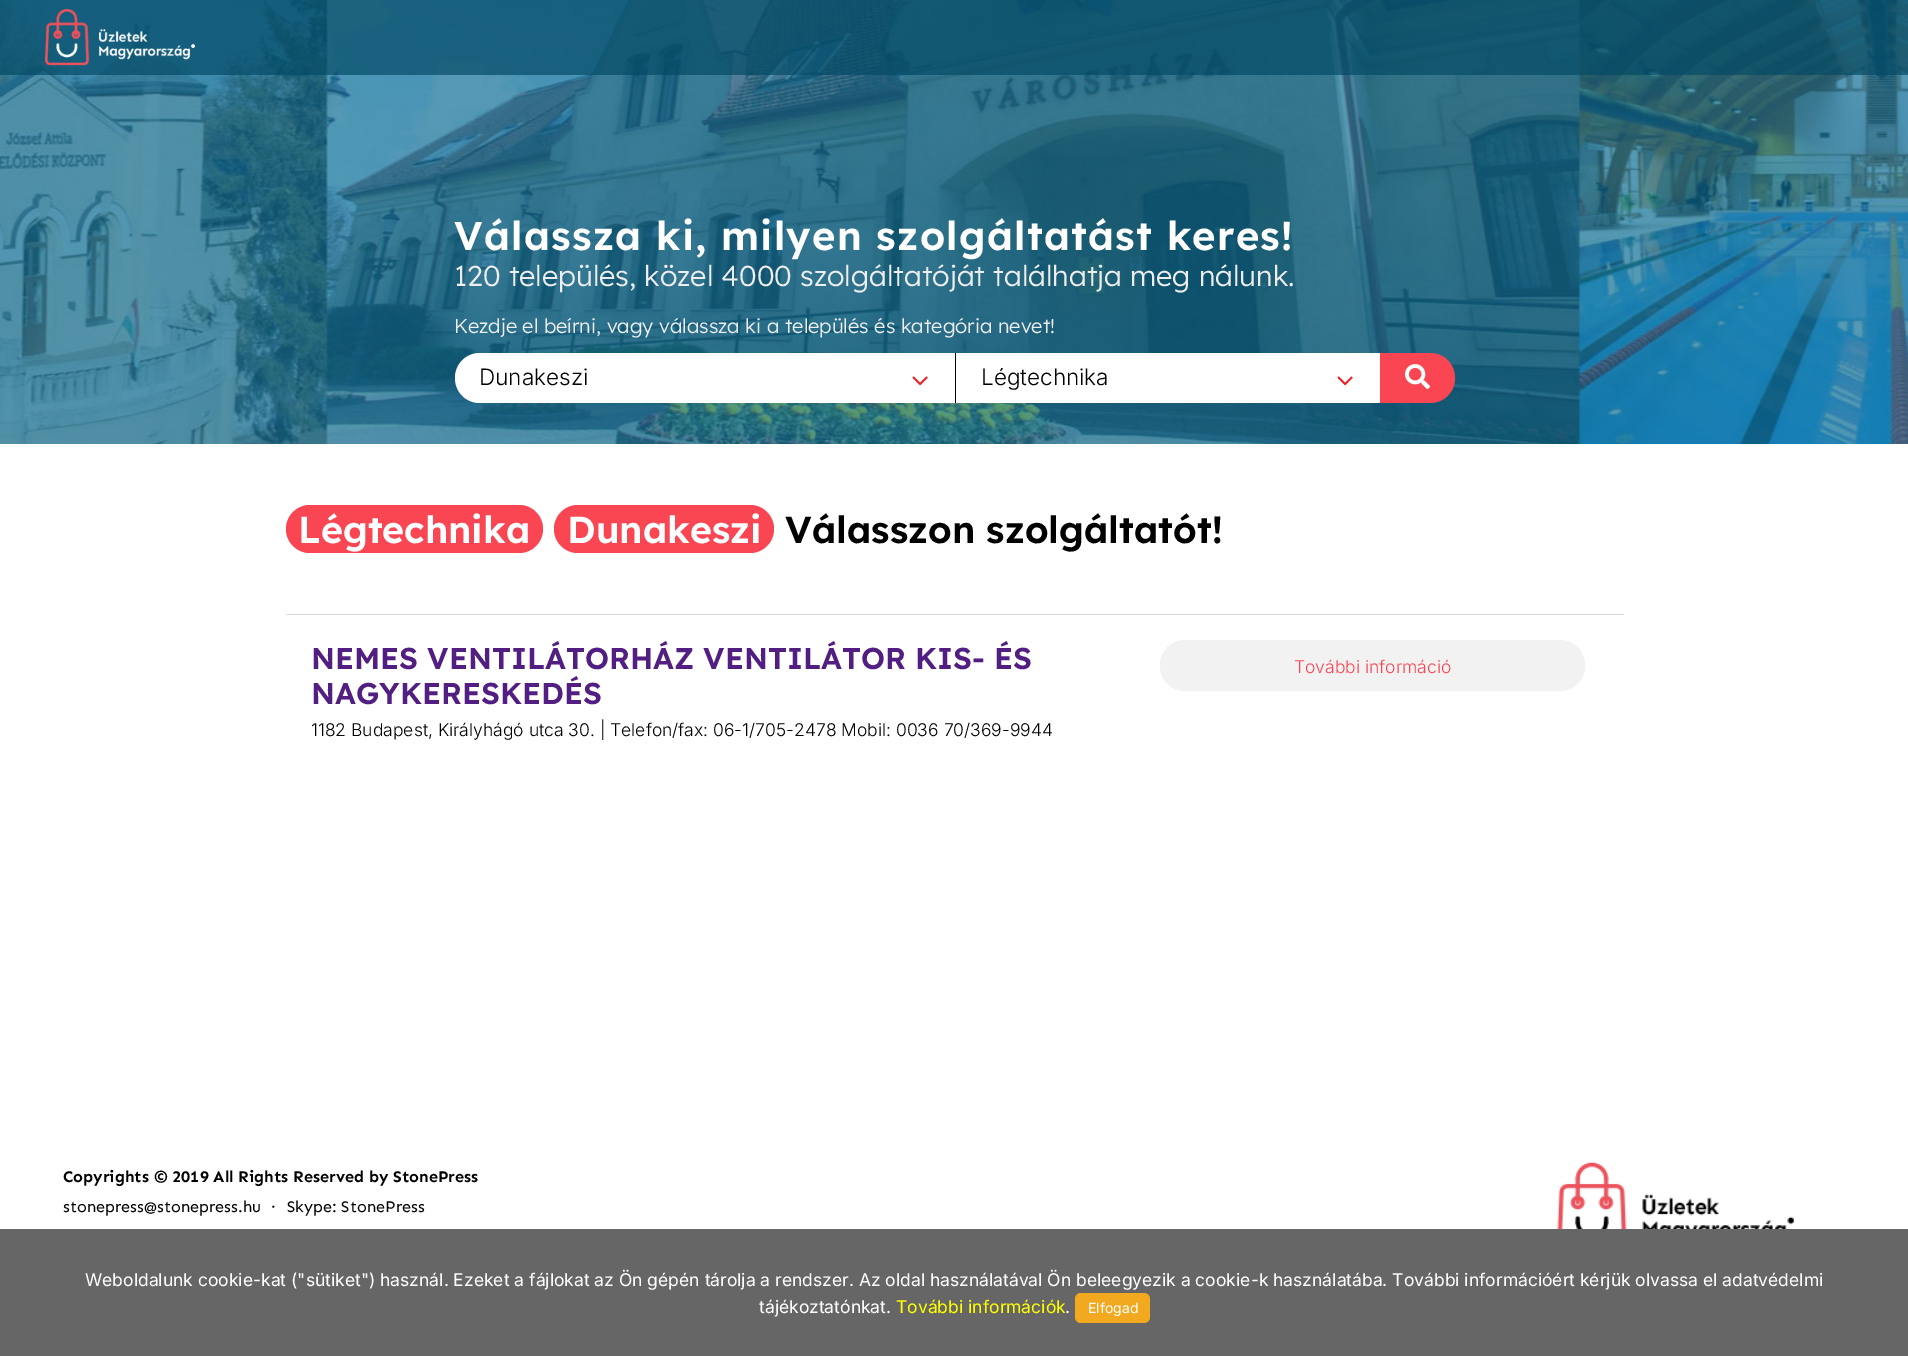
%!PS
<< /PageSize [1908 1356] /PageUsesTransparency true >> setpagedevice
/rgb { 3 { 255 div 3 1 roll } repeat setrgbcolor } def
/font { [ exch dup neg 0 0 3 -1 roll 0 0 ] selectfont } def
/text { moveto show } def
/alpha { dup .setfillconstantalpha .setstrokeconstantalpha } def
/roundrect { 5 dict begin { /r /h /w /y /x } { exch def } forall
  x r add y moveto x w add y 2 copy h add r arct x w add y h add x 1 index r arct
  x y h add x y r arct x y 2 copy exch w add exch r arct closepath end } def
/picture { 5 dict begin { /h /w /y /x /name } { exch def } forall
  gsave x y translate w h scale
  w h 8 [w 0 0 h 0 0] name (r) file false 3 colorimage grestore end } def
0 .pushpdf14devicefilter
0 1356 translate 1 -1 scale
4 setmiterlimit
255 255 255 rgb
0 0 1908 1356 rectfill
(img_02.rgb) 0 0 1908 444 picture
0.68 alpha
2 73 100 rgb
0 0 1908 75 rectfill
1 alpha
(img_01.rgb) 45 9 150 57 picture
255 255 255 rgb
480 353 moveto 475 0 rlineto 0 50 rlineto -475 0 rlineto -14 0 -25 -11 -25 -25 rcurveto 0 -14 11 -25 25 -25 rcurveto closepath fill
(img_03.rgb) 912 376 16 10 picture
956 353 424 50 rectfill
0 0 0 rgb
955 353 1 50 rectfill
(img_03.rgb) 1337 376 16 10 picture
250 70 82 rgb
1380 353 moveto 50 0 rlineto 14 0 25 11 25 25 rcurveto 0 14 -11 25 -25 25 rcurveto -50 0 rlineto closepath fill
(img_04.rgb) 1405 364 25 25 picture
286 505 257 48 24 roundrect fill
554 505 220 48 24 roundrect fill
217 217 217 rgb
286 614 1338 1 rectfill
242 242 242 rgb
1160 640 425 51 25 roundrect fill
(img_05.rgb) 1557 1162 238 67 picture
102 102 102 rgb
0 1229 1908 127 rectfill
242 169 32 rgb
1075 1293 75 30 6 roundrect fill
/Lexend-SemiBold 40 font
255 255 255 rgb
454 250 moveto 1.25 0 (Válassza ki, milyen szolgáltatást keres!) ashow
/Lexend-Light 28.75 font
238 238 238 rgb
(120 település, közel 4000 szolgáltatóját találhatja meg nálunk.) 454 286 text
/Lexend-Light 20 font
(Kezdje el beírni, vagy válassza ki a település és kategória nevet!) 454 333 text
/Inter-Light 22.5 font
0 0 0 rgb
(Dunakeszi) 479 385 text
(Légtechnika) 981 385 text
/Lexend-SemiBold 37.5 font
255 255 255 rgb
(Légtechnika) 298 543 text
(Dunakeszi) 567 543 text
0 0 0 rgb
(Válasszon szolgáltatót!) 785 543 text
/Lexend-SemiBold 30 font
82 30 129 rgb
(NEMES VENTILÁTORHÁZ VENTILÁTOR KIS- ÉS) 311 669 text
(NAGYKERESKEDÉS) 311 704 text
/Inter-Light 17.5 font
0 0 0 rgb
(1182 Budapest, Királyhágó utca 30. | Telefon/fax: 06-1/705-2478 Mobil: 0036 70/369-9944) 311 736 text
250 70 82 rgb
(További információ) 1294 673 text
/Sen-Bold 16.25 font
0 0 0 rgb
(Copyrights © 2019 All Rights Reserved by StonePress) 63 1182 text
/Sen-Regular 16.25 font
(stonepress@stonepress.hu) 63 1212 text
(·) 271 1212 text
(Skype: StonePress) 287 1212 text
/Inter-Regular 17.5 font
255 255 255 rgb
(Weboldalunk cookie-kat \("sütiket"\) használ. Ezeket a fájlokat az Ön gépén tárolja a rendszer. Az oldal használatával Ön beleegyezik a cookie-k használatába. További információért kérjük olvassa el adatvédelmi) 85 1286 text
(tájékoztatónkat.) 759 1313 text
255 255 0 rgb
(További információk) 896 1313 text
255 255 255 rgb
(.) 1065 1313 text
/Inter-Regular 14 font
(Elfogad) 1088 1313 text
.poppdf14devicefilter showpage
